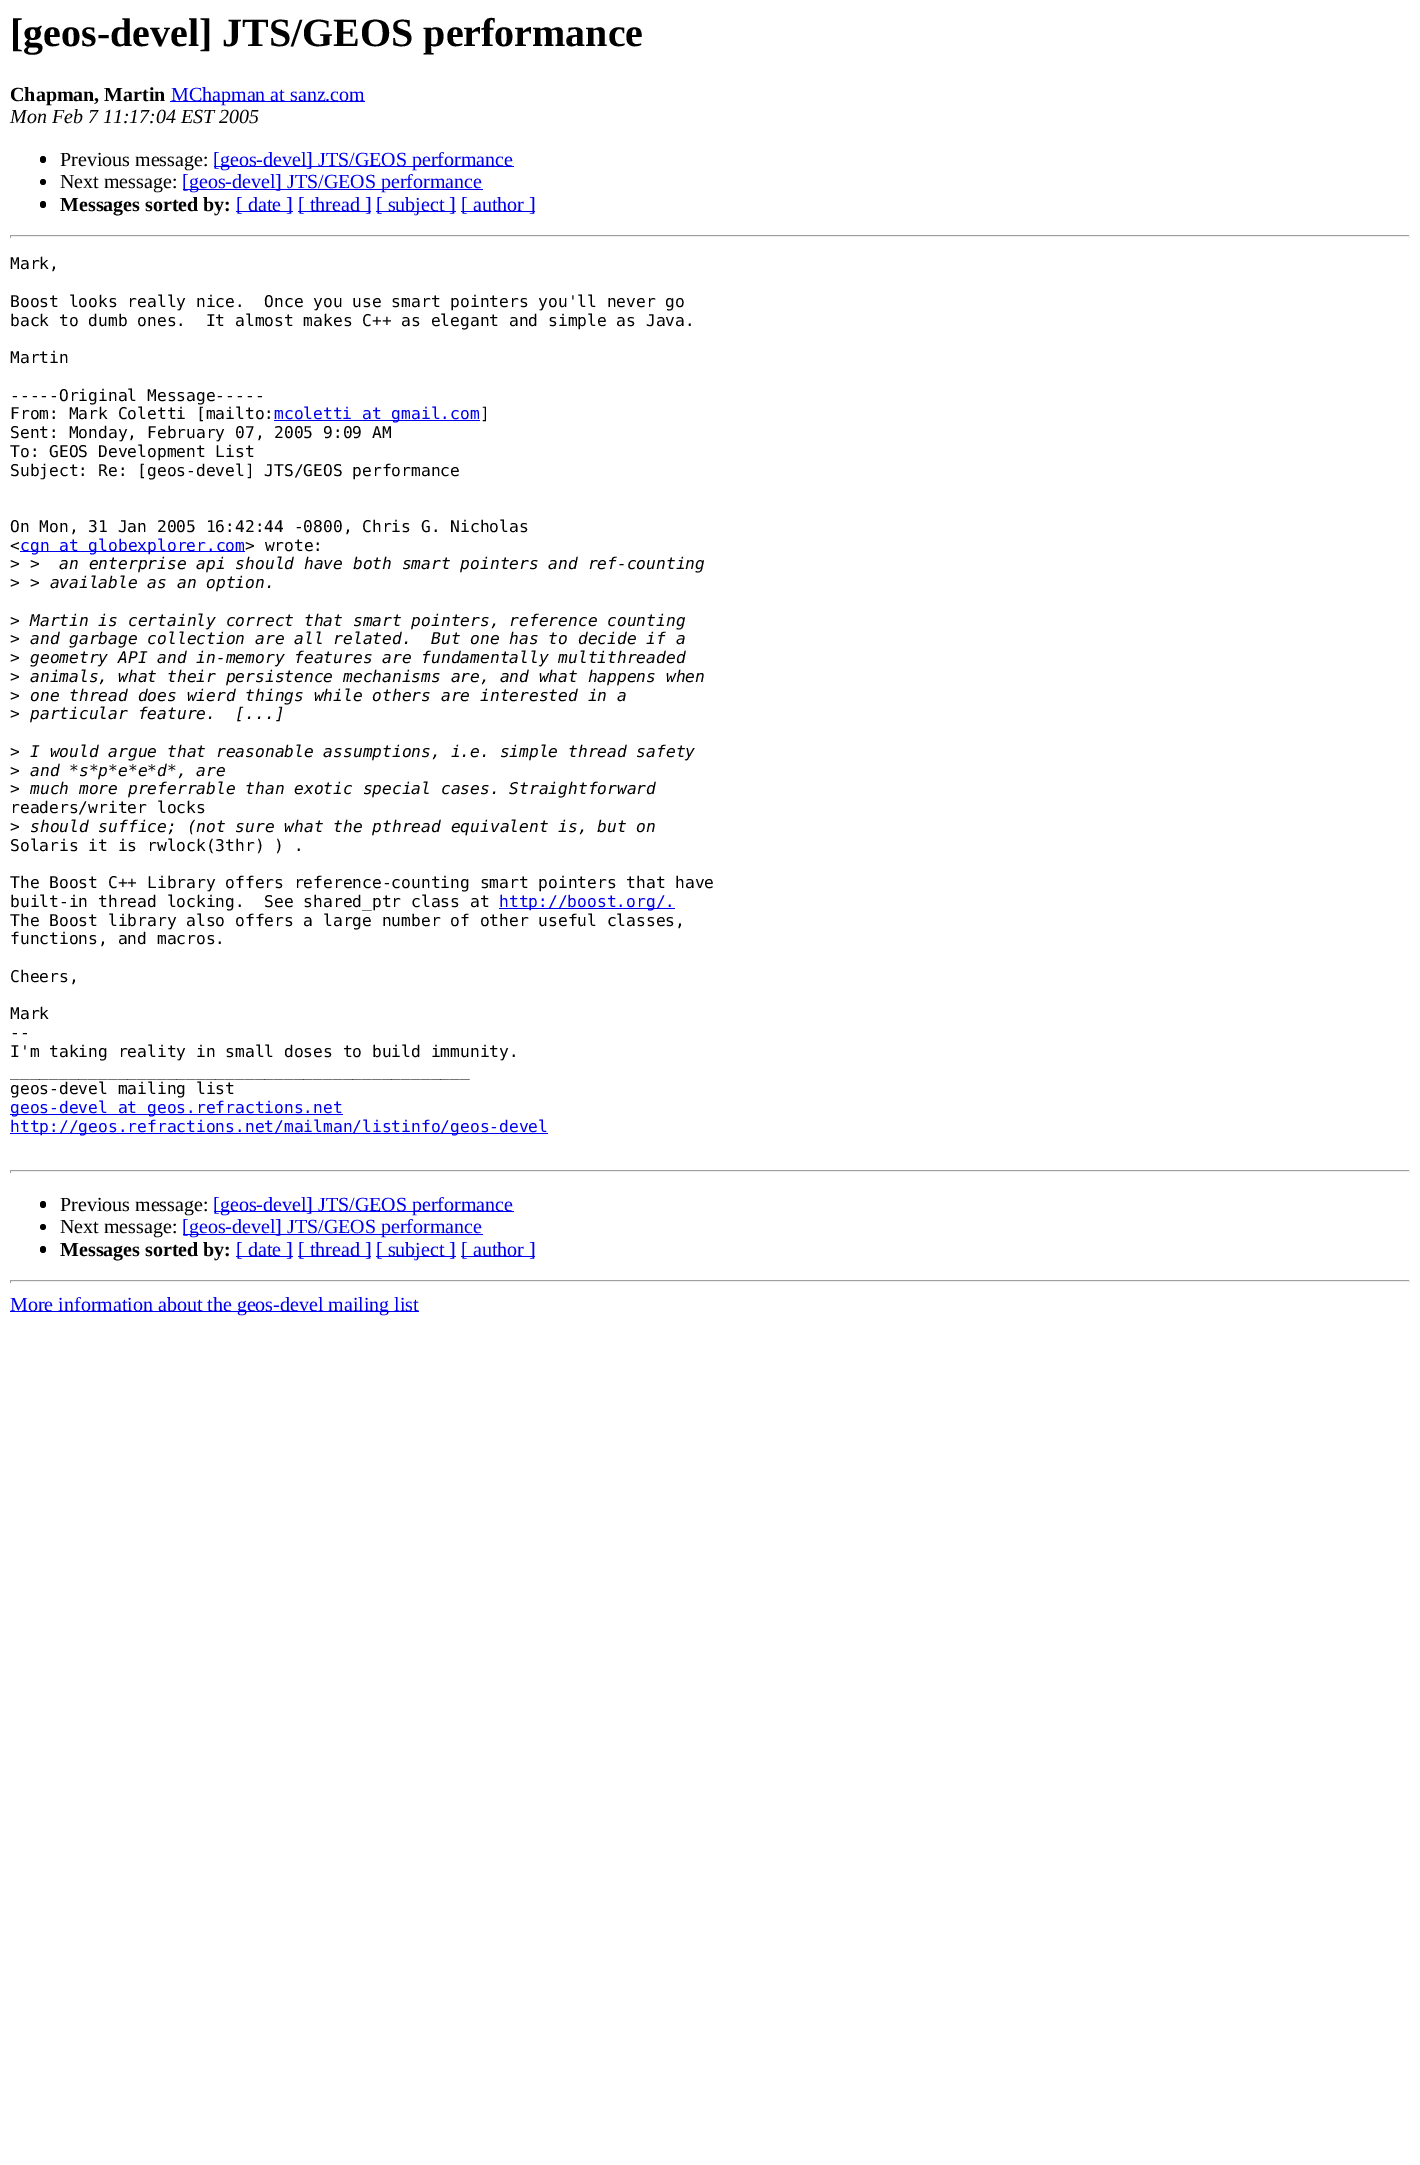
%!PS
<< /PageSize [1420 2165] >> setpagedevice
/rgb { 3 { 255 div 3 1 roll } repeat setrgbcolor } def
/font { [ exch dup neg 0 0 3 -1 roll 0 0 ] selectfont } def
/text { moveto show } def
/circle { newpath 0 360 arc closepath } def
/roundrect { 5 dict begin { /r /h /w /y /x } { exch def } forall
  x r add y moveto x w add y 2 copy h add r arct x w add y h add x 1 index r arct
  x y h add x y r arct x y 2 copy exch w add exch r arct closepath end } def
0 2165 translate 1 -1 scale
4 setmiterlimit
255 255 255 rgb
0 0 1420 2165 rectfill
0 0 238 rgb
170 101 195 1 rectfill
0 0 0 rgb
40 156 6 7 3 roundrect fill
0 0 238 rgb
214 166 300 1 rectfill
0 0 0 rgb
43 182 3 circle fill
0 0 238 rgb
183 189 300 1 rectfill
0 0 0 rgb
40 201 6 7 3 roundrect fill
0 0 238 rgb
236 211 57 1 rectfill
298 211 73 1 rectfill
376 211 80 1 rectfill
461 211 74 1 rectfill
159 159 159 rgb
10 235 1400 1 rectfill
238 238 238 rgb
1409 235 1 3 rectfill
10 236 1400 1 rectfill
159 159 159 rgb
10 235 1 3 rectfill
0 0 238 rgb
274 420 206 1 rectfill
20 551 225 1 rectfill
499 908 176 1 rectfill
10 1114 333 1 rectfill
10 1133 538 1 rectfill
159 159 159 rgb
10 1170 1400 1 rectfill
238 238 238 rgb
1409 1170 1 3 rectfill
10 1171 1400 1 rectfill
159 159 159 rgb
10 1170 1 3 rectfill
0 0 0 rgb
40 1201 6 7 3 roundrect fill
0 0 238 rgb
214 1211 300 1 rectfill
0 0 0 rgb
43 1227 3 circle fill
0 0 238 rgb
183 1234 300 1 rectfill
0 0 0 rgb
40 1246 6 7 3 roundrect fill
0 0 238 rgb
236 1256 57 1 rectfill
298 1256 73 1 rectfill
376 1256 80 1 rectfill
461 1256 74 1 rectfill
159 159 159 rgb
10 1280 1400 1 rectfill
238 238 238 rgb
1409 1280 1 3 rectfill
10 1281 1400 1 rectfill
159 159 159 rgb
10 1280 1 3 rectfill
0 0 238 rgb
10 1311 409 1 rectfill
/LiberationSerif-Bold 40 font
0 0 0 rgb
([geos-devel] JTS/GEOS performance) 10 46 text
/LiberationSerif-Bold 20 font
(Chapman, Martin) 10 101 text
/LiberationSerif-Regular 20 font
0 0 238 rgb
(MChapman at sanz.com) 171 101 text
/LiberationSerif-Italic 20 font
0 0 0 rgb
(Mon Feb 7 11:17:04 EST 2005) 10 123 text
/LiberationSerif-Regular 20 font
(Previous message:) 60 166 text
0 0 238 rgb
([geos-devel] JTS/GEOS performance) 213 166 text
0 0 0 rgb
(Next message:) 60 188 text
0 0 238 rgb
([geos-devel] JTS/GEOS performance) 182 188 text
/LiberationSerif-Bold 20 font
0 0 0 rgb
(Messages sorted by:) 60 211 text
/LiberationSerif-Regular 20 font
0 0 238 rgb
([ date ]) 236 211 text
([ thread ]) 298 211 text
([ subject ]) 376 211 text
([ author ]) 461 211 text
/DejaVuSansMono-Regular 16.25 font
0 0 0 rgb
(Mark,) 10 269 text
(Boost looks really nice.  Once you use smart pointers you'll never go) 10 307 text
(back to dumb ones.  It almost makes C++ as elegant and simple as Java.) 10 326 text
(Martin) 10 363 text
(-----Original Message-----) 10 401 text
(From: Mark Coletti [mailto:) 10 419 text
0 0 238 rgb
(mcoletti at gmail.com) 274 419 text
0 0 0 rgb
(]) 480 419 text
(Sent: Monday, February 07, 2005 9:09 AM) 10 438 text
(To: GEOS Development List) 10 457 text
(Subject: Re: [geos-devel] JTS/GEOS performance) 10 476 text
(On Mon, 31 Jan 2005 16:42:44 -0800, Chris G. Nicholas) 10 532 text
(<) 10 551 text
0 0 238 rgb
(cgn at globexplorer.com) 20 551 text
0 0 0 rgb
(> wrote:) 245 551 text
(>) 10 569 text
/DejaVuSansMono-Italic 16.25 font
(>  an enterprise api should have both smart pointers and ref-counting) 30 569 text
/DejaVuSansMono-Regular 16.25 font
(>) 10 588 text
/DejaVuSansMono-Italic 16.25 font
(> available as an option.) 30 588 text
/DejaVuSansMono-Regular 16.25 font
(>) 10 626 text
/DejaVuSansMono-Italic 16.25 font
(Martin is certainly correct that smart pointers, reference counting) 30 626 text
/DejaVuSansMono-Regular 16.25 font
(>) 10 644 text
/DejaVuSansMono-Italic 16.25 font
(and garbage collection are all related.  But one has to decide if a) 30 644 text
/DejaVuSansMono-Regular 16.25 font
(>) 10 663 text
/DejaVuSansMono-Italic 16.25 font
(geometry API and in-memory features are fundamentally multithreaded) 30 663 text
/DejaVuSansMono-Regular 16.25 font
(>) 10 682 text
/DejaVuSansMono-Italic 16.25 font
(animals, what their persistence mechanisms are, and what happens when) 30 682 text
/DejaVuSansMono-Regular 16.25 font
(>) 10 701 text
/DejaVuSansMono-Italic 16.25 font
(one thread does wierd things while others are interested in a) 30 701 text
/DejaVuSansMono-Regular 16.25 font
(>) 10 719 text
/DejaVuSansMono-Italic 16.25 font
(particular feature.  [...]) 30 719 text
/DejaVuSansMono-Regular 16.25 font
(>) 10 757 text
/DejaVuSansMono-Italic 16.25 font
(I would argue that reasonable assumptions, i.e. simple thread safety) 30 757 text
/DejaVuSansMono-Regular 16.25 font
(>) 10 776 text
/DejaVuSansMono-Italic 16.25 font
(and *s*p*e*e*d*, are) 30 776 text
/DejaVuSansMono-Regular 16.25 font
(>) 10 794 text
/DejaVuSansMono-Italic 16.25 font
(much more preferrable than exotic special cases. Straightforward) 30 794 text
/DejaVuSansMono-Regular 16.25 font
(readers/writer locks) 10 813 text
(>) 10 832 text
/DejaVuSansMono-Italic 16.25 font
(should suffice; \(not sure what the pthread equivalent is, but on) 30 832 text
/DejaVuSansMono-Regular 16.25 font
(Solaris it is rwlock\(3thr\) \) .) 10 851 text
(The Boost C++ Library offers reference-counting smart pointers that have) 10 888 text
(built-in thread locking.  See shared_ptr class at) 10 907 text
0 0 238 rgb
(http://boost.org/.) 499 907 text
0 0 0 rgb
(The Boost library also offers a large number of other useful classes,) 10 926 text
(functions, and macros.) 10 944 text
(Cheers,) 10 982 text
(Mark) 10 1019 text
(--) 10 1038 text
(I'm taking reality in small doses to build immunity.) 10 1057 text
(_______________________________________________) 10 1076 text
(geos-devel mailing list) 10 1094 text
0 0 238 rgb
(geos-devel at geos.refractions.net) 10 1113 text
(http://geos.refractions.net/mailman/listinfo/geos-devel) 10 1132 text
/LiberationSerif-Regular 20 font
0 0 0 rgb
(Previous message:) 60 1211 text
0 0 238 rgb
([geos-devel] JTS/GEOS performance) 213 1211 text
0 0 0 rgb
(Next message:) 60 1233 text
0 0 238 rgb
([geos-devel] JTS/GEOS performance) 182 1233 text
/LiberationSerif-Bold 20 font
0 0 0 rgb
(Messages sorted by:) 60 1256 text
/LiberationSerif-Regular 20 font
0 0 238 rgb
([ date ]) 236 1256 text
([ thread ]) 298 1256 text
([ subject ]) 376 1256 text
([ author ]) 461 1256 text
(More information about the geos-devel mailing list) 10 1311 text
showpage
